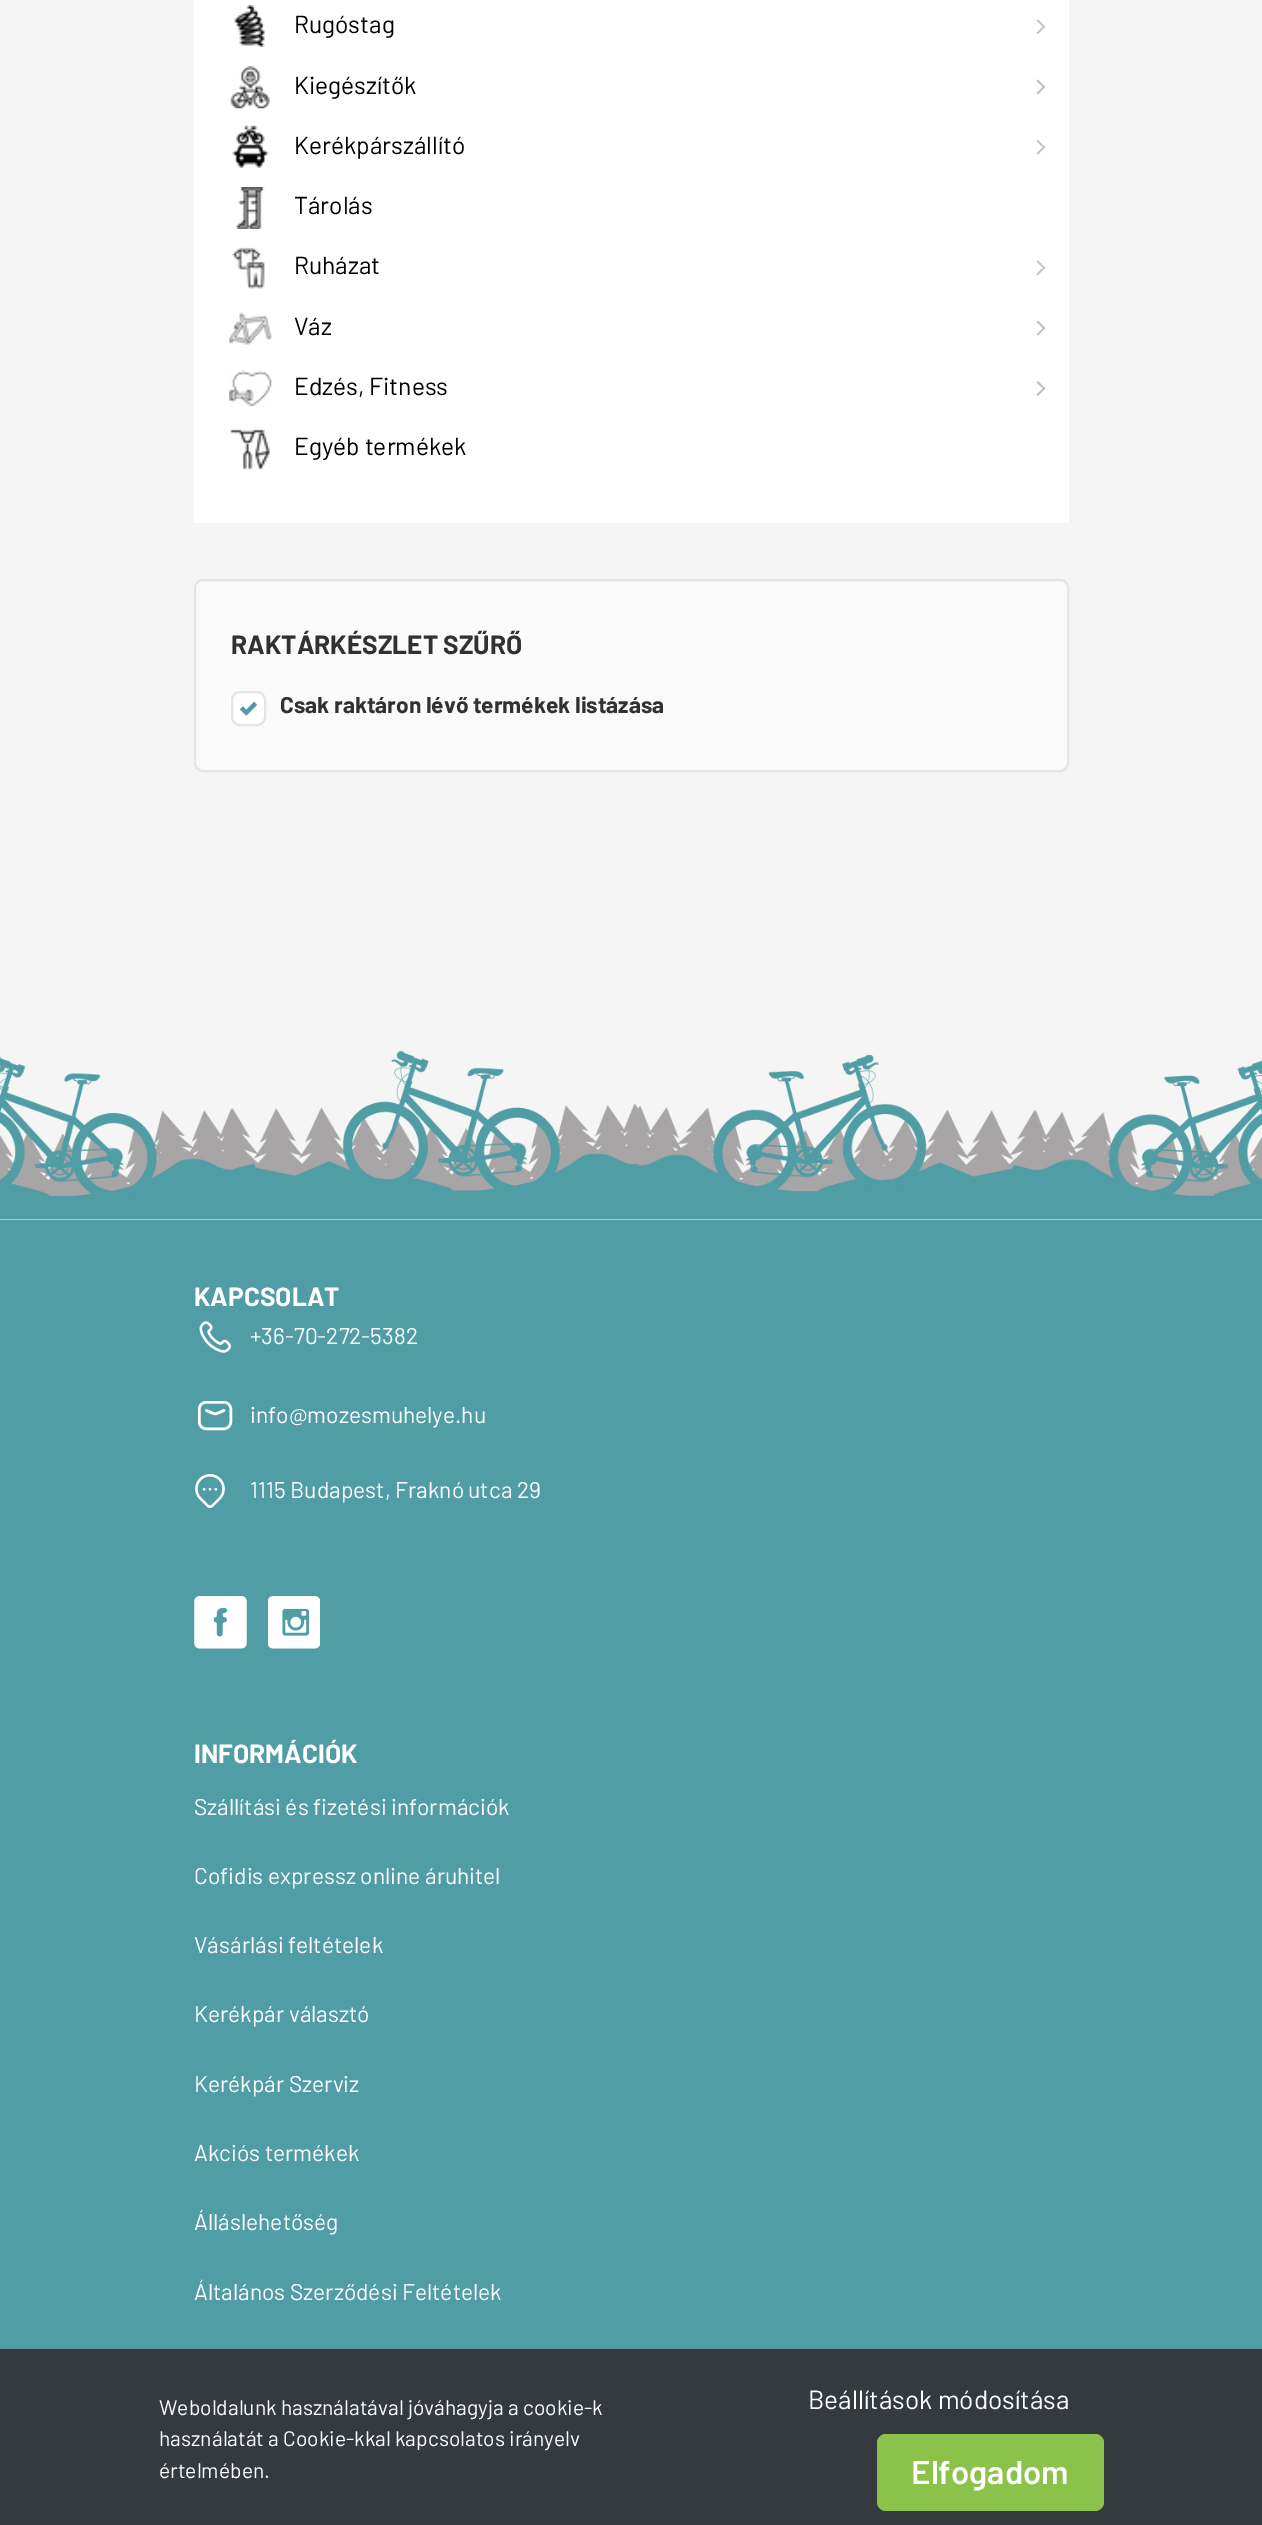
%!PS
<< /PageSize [1262 2525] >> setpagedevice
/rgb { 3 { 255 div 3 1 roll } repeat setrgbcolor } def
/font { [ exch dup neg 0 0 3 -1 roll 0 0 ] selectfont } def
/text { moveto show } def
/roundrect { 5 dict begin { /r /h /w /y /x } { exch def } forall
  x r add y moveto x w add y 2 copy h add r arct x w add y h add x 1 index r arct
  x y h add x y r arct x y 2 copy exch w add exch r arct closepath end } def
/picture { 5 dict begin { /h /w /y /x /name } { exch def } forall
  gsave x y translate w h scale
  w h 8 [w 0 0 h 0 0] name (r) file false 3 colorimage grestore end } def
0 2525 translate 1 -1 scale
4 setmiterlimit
245 245 245 rgb
0 0 1262 2525 rectfill
(img_01.rgb) 0 1050 1262 170 picture
255 255 255 rgb
194 0 875 523 rectfill
(img_02.rgb) 234 5 31 42 picture
193 193 194 rgb
1036.5 20.5 moveto 1.5 -1 rlineto 7 7 rlineto -1 1.5 rlineto closepath fill
1036.5 33 moveto 7.5 -7.5 rlineto 1 1 rlineto -7 7.5 rlineto closepath fill
(img_03.rgb) 230 66 40 43 picture
1036.5 81 moveto 1.5 -1.5 rlineto 7 7.5 rlineto -1 1 rlineto closepath fill
1036.5 93 moveto 7.5 -7.5 rlineto 1 1.5 rlineto -7 7.5 rlineto closepath fill
(img_04.rgb) 232 125 37 43 picture
1036.5 141 moveto 1.5 -1 rlineto 7 7.5 rlineto -1 1 rlineto closepath fill
1036.5 153.5 moveto 7.5 -7.5 rlineto 1 1.5 rlineto -7 7 rlineto closepath fill
(img_05.rgb) 236 187 29 42 picture
(img_06.rgb) 232 247 33 42 picture
1036.5 261.5 moveto 1.5 -1 rlineto 7 7.5 rlineto -1 1 rlineto closepath fill
1036.5 274 moveto 7.5 -7.5 rlineto 1 1.5 rlineto -7.5 7.5 rlineto closepath fill
(img_07.rgb) 229 312 43 33 picture
1036.5 322 moveto 1.5 -1.5 rlineto 7 7.5 rlineto -1 1.5 rlineto closepath fill
1036.5 334.5 moveto 7.5 -7.5 rlineto 1 1 rlineto -7 7.5 rlineto closepath fill
(img_08.rgb) 229 370 43 37 picture
1036.5 382.5 moveto 1.5 -1.5 rlineto 7 7.5 rlineto -1 1 rlineto closepath fill
1036.5 394.5 moveto 7.5 -7.5 rlineto 1 1.5 rlineto -7 7.5 rlineto closepath fill
(img_09.rgb) 229 429 41 41 picture
250 250 250 rgb
195 580 873 191 8 roundrect gsave fill grestore
228 228 234 rgb
2 setlinewidth
stroke
255 255 255 rgb
232 692 33 33 8 roundrect gsave fill grestore
228 228 234 rgb
stroke
(img_10.rgb) 240 701 17 15 picture
80 157 165 rgb
0 1220 1262 1129 rectfill
(img_11.rgb) 199 1321 32 32 picture
255 255 255 rgb
2.5 setlinewidth
199.25 1402.25 31.5 26.5 6.75 roundrect stroke
2.6 setlinewidth
1 setlinecap
1 setlinejoin
206.5 1410.5 moveto 10.5 4.5 7 4.5 17.5 0 rcurveto stroke
(img_12.rgb) 195 1474 30 34 picture
(img_13.rgb) 194 1596 53 53 picture
(img_14.rgb) 268 1596 52 53 picture
52 58 64 rgb
0 2349 1262 176 rectfill
139 195 74 rgb
877 2434 227 77 9 roundrect fill
/Barlow-Regular 24.5 font
0 0 0 rgb
(Rugóstag) 294 33 text
(Kiegészítők) 294 94 text
(Kerékpárszállító) 294 154 text
(Tárolás) 294 214 text
(Ruházat) 294 274 text
(Váz) 294 335 text
(Edzés, Fitness) 294 395 text
(Egyéb termékek) 294 455 text
/Barlow-Bold 26.25 font
47 49 50 rgb
(RAKTÁRKÉSZLET SZŰRŐ) 231 654 text
/Barlow-Bold 22.75 font
(Csak raktáron lévő termékek listázása) 280 713 text
/Barlow-Bold 26.25 font
255 255 255 rgb
(KAPCSOLAT) 194 1306 text
/Barlow-Regular 22.75 font
(+36-70-272-5382) 250 1344 text
(info@mozesmuhelye.hu) 250 1423 text
(1115 Budapest, Fraknó utca 29) 250 1498 text
/Barlow-Bold 26.25 font
(INFORMÁCIÓK) 194 1763 text
/Barlow-Regular 22.75 font
(Szállítási és fizetési információk) 194 1815 text
(Cofidis expressz online áruhitel) 194 1884 text
(Vásárlási feltételek) 194 1953 text
(Kerékpár választó) 194 2022 text
(Kerékpár Szerviz) 194 2092 text
(Akciós termékek) 194 2161 text
(Álláslehetőség) 194 2230 text
(Általános Szerződési Feltételek) 194 2300 text
/Barlow-Regular 21 font
(Weboldalunk használatával jóváhagyja a cookie-k) 159 2415 text
(használatát a Cookie-kkal kapcsolatos irányelv) 159 2446 text
(értelmében.) 159 2478 text
/Barlow-Regular 26.25 font
(Beállítások módosítása) 808 2409 text
/Barlow-SemiBold 33 font
(Elfogadom) 911 2484 text
showpage
